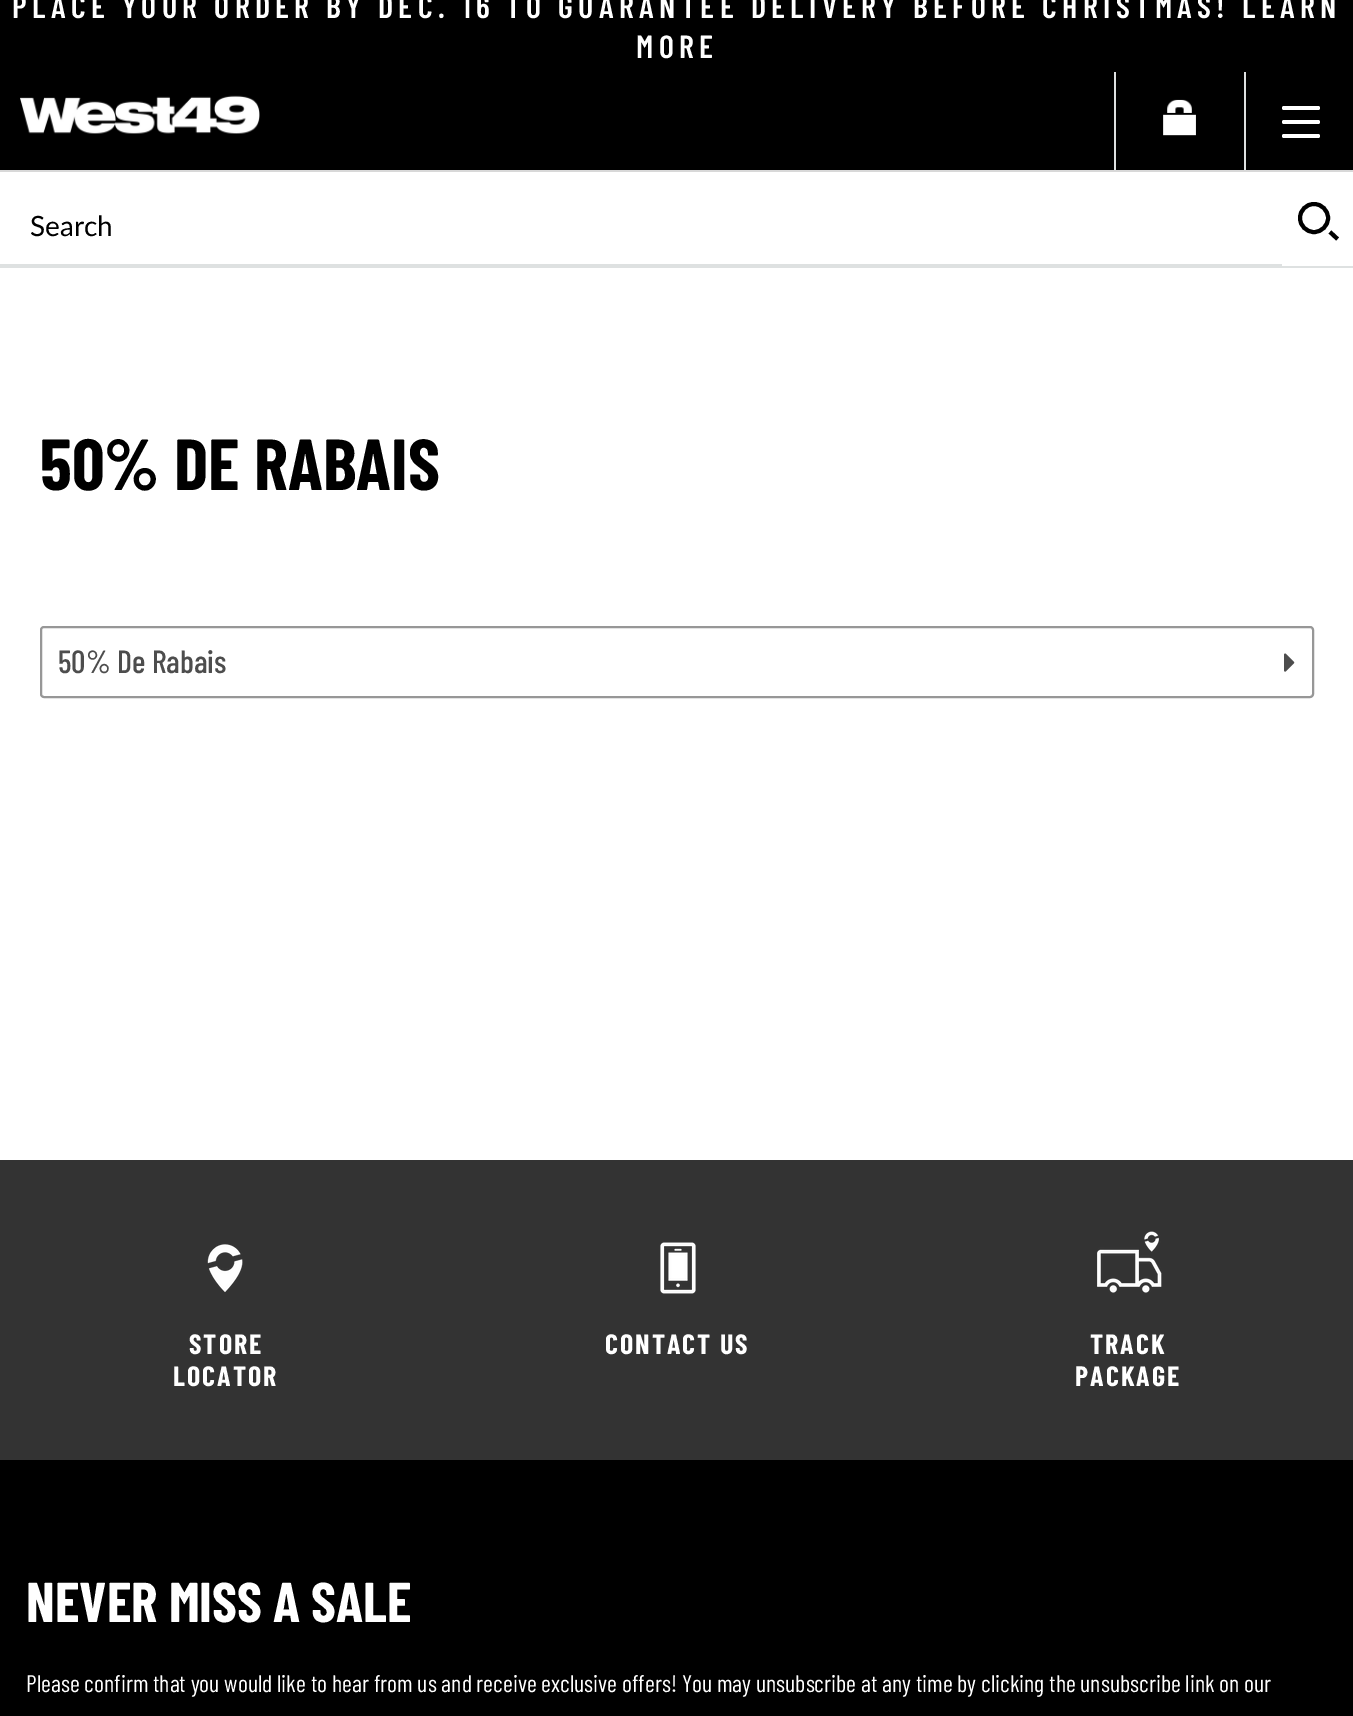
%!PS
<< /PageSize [1353 1716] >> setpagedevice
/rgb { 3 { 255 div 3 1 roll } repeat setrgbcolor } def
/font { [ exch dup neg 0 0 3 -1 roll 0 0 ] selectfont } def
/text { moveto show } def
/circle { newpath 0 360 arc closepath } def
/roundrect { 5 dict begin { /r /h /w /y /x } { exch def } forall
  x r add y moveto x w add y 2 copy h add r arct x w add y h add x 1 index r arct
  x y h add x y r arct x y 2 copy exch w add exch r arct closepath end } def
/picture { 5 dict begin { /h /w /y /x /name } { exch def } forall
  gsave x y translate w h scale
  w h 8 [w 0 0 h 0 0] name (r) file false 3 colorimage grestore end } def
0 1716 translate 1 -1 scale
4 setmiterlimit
255 255 255 rgb
0 0 1353 1716 rectfill
0 0 0 rgb
0 0 1353 170 rectfill
216 216 216 rgb
0 170 1353 2 rectfill
(img_01.rgb) 20 95 240 39 picture
222 225 225 rgb
1114 72 2 98 rectfill
(img_02.rgb) 1163 99 33 37 picture
1244 72 2 98 rectfill
255 255 255 rgb
1282 120 38 4 2 roundrect fill
1282 106 38 4 2 roundrect fill
1282 134 38 4 2 roundrect fill
222 225 225 rgb
0 266 1353 2 rectfill
0 264 1282 2 rectfill
0 0 0 rgb
4 setlinewidth
1314 218 14 circle stroke
1330 232 moveto 7.5 7 rlineto stroke
151 151 151 rgb
2 setlinewidth
41 627 1272 70 3 roundrect stroke
(img_03.rgb) 1284 653 11 19 picture
0 0 0 rgb
0 1460 1353 256 rectfill
51 51 51 rgb
0 1160 1353 300 rectfill
(img_04.rgb) 207 1244 36 48 picture
(img_05.rgb) 660 1242 36 52 picture
(img_06.rgb) 1097 1231 65 62 picture
/BarlowCondensed-SemiBold 32 font
255 255 255 rgb
12 18 moveto 5.35 0 (PLACE YOUR ORDER BY DEC. 16 TO GUARANTEE DELIVERY BEFORE CHRISTMAS! LEARN) ashow
636 58 moveto 5.35 0 (MORE) ashow
/Lato-Regular 28 font
0 0 0 rgb
(Search) 30 236 text
/BarlowCondensed-Bold 72 font
(50% DE RABAIS) 40 490 text
/BarlowCondensed-Medium 32 font
77 77 77 rgb
(50% De Rabais) 58 673 text
/BarlowCondensed-Bold 28 font
255 255 255 rgb
189 1354 moveto 2 0 (STORE) ashow
173 1386 moveto 2 0 (LOCATOR) ashow
605 1354 moveto 2 0 (CONTACT US) ashow
1090 1354 moveto 2 0 (TRACK) ashow
1075 1386 moveto 2 0 (PACKAGE) ashow
/BarlowCondensed-Bold 56 font
(NEVER MISS A SALE) 26 1622 text
/BarlowCondensed-Regular 24 font
(Please confirm that you would like to hear from us and receive exclusive offers! You may unsubscribe at any time by clicking the unsubscribe link on our) 26 1692 text
showpage
